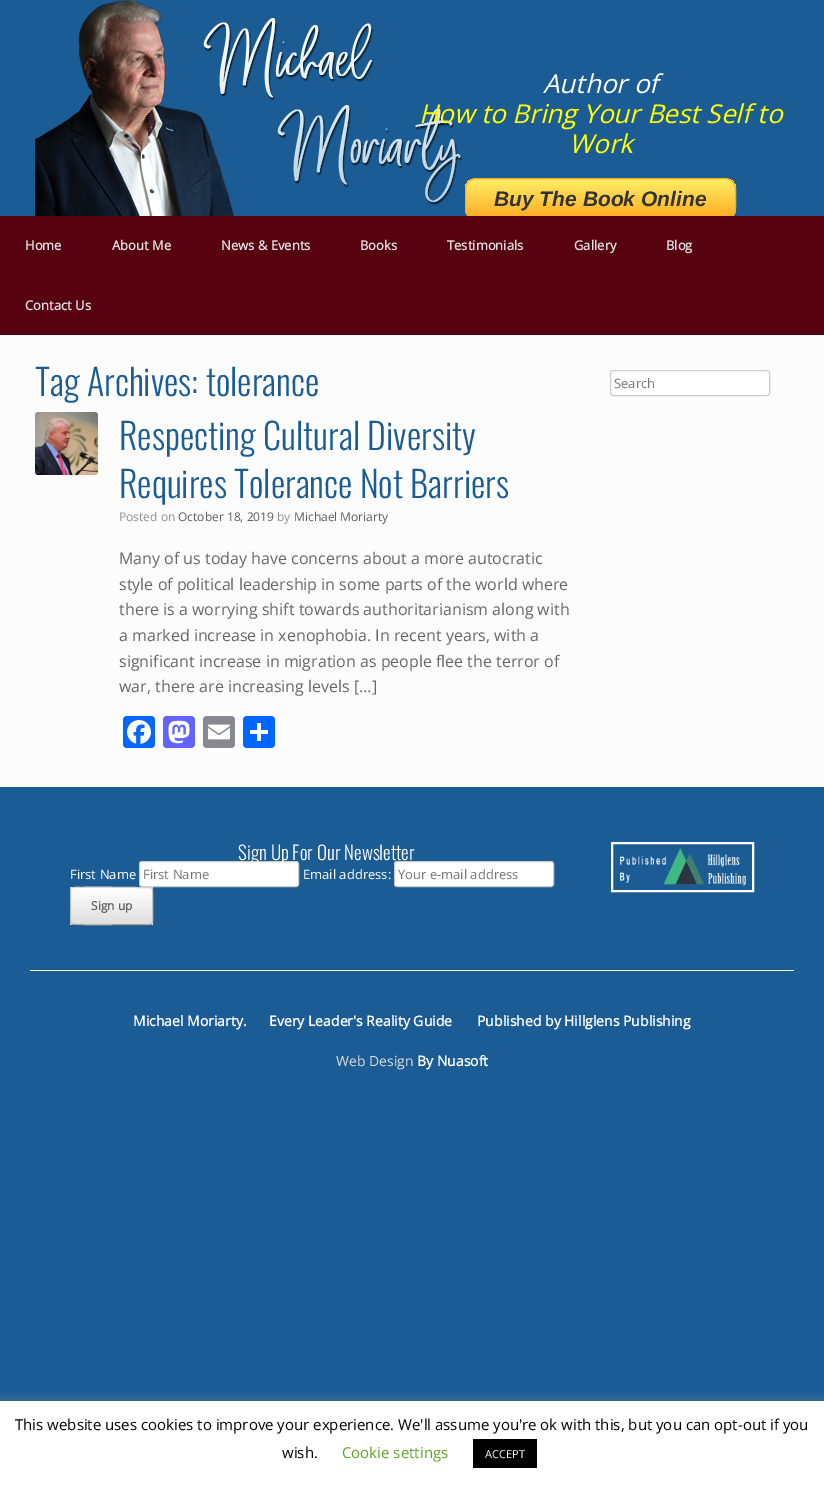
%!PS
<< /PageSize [824 1485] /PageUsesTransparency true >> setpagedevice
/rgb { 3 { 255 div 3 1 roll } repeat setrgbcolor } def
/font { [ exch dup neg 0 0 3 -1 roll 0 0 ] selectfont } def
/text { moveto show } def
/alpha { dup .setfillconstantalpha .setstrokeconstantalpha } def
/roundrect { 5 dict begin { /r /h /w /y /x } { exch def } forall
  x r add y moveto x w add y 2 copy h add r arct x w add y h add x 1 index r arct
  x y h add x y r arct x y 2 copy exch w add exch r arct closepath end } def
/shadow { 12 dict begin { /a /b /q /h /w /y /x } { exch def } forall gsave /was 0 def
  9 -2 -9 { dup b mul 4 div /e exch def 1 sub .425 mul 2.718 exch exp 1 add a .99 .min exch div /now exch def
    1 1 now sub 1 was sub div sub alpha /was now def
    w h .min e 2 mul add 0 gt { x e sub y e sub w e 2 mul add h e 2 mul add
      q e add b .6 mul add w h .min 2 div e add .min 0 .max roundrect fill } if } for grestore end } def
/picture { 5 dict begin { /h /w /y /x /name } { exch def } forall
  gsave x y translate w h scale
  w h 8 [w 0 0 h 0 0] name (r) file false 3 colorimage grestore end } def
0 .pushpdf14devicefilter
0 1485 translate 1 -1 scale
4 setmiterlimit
27 92 148 rgb
0 0 824 1485 rectfill
(img_01.rgb) 35 0 428 216 picture
255 246 175 rgb
465 208 moveto 0 1 rlineto 0 6 5 11 11 11 rcurveto 249 0 rlineto 6 0 11 -5 11 -11 rcurveto 0 -1 rlineto 0 6 -5 11 -11 11 rcurveto -249 0 rlineto -6 0 -11 -5 -11 -11 rcurveto closepath fill
gsave
465 178 271 41 11 roundrect clip newpath
gsave 465 179 moveto 271 0 rlineto 0 37 rlineto -271 0 rlineto closepath clip newpath
<< /ShadingType 2 /ColorSpace /DeviceRGB /Coords [601 179 601 218] /Extend [true true] /Function << /FunctionType 3 /Domain [0 1] /Functions [<< /FunctionType 2 /Domain [0 1] /C0 [1 0.925 0.392] /C1 [1 0.925 0.392] /N 1 >> << /FunctionType 2 /Domain [0 1] /C0 [1 0.925 0.392] /C1 [1 0.671 0.137] /N 1 >>] /Bounds [0.05] /Encode [0 1 0 1] >> >> shfill grestore
grestore
255 170 34 rgb
465.5 178.5 270 40 10.5 roundrect stroke
87 0 15 rgb
0 216 824 119 rectfill
252 252 252 rgb
0 335 824 452 rectfill
(img_02.rgb) 35 412 63 63 picture
8 102 255 rgb
123 716 32 32 4 roundrect fill
(img_03.rgb) 127 720 24 24 picture
99 100 255 rgb
163 716 32 32 4 roundrect fill
(img_04.rgb) 168 720 22 24 picture
136 137 144 rgb
203 716 32 32 4 roundrect fill
(img_05.rgb) 208 724 22 16 picture
1 102 255 rgb
243 716 32 32 4 roundrect fill
255 255 255 rgb
257 723 4 18 rectfill
250 730 18 4 rectfill
610.5 370.5 159 25 2.5 roundrect gsave fill grestore
204 204 204 rgb
stroke
255 255 255 rgb
139.5 861.5 159 25 2.5 roundrect gsave fill grestore
204 204 204 rgb
stroke
255 255 255 rgb
394.5 861.5 159 25 2.5 roundrect gsave fill grestore
204 204 204 rgb
stroke
0 0 0 rgb
70 888 83 38 3 0.5 0.12 shadow
gsave
70 887 83 38 3 roundrect clip newpath
gsave 70 887 moveto 83 0 rlineto 0 1 rlineto -83 0 rlineto closepath clip newpath
<< /ShadingType 2 /ColorSpace /DeviceRGB /Coords [71 888 71 852] /Extend [true true] /Function << /FunctionType 2 /Domain [0 1] /C0 [0.875 0.875 0.875] /C1 [1 1 1] /N 1 >> >> shfill grestore
gsave 70 888 moveto 83 0 rlineto 0 36 rlineto -83 0 rlineto closepath clip newpath
<< /ShadingType 2 /ColorSpace /DeviceRGB /Coords [71 924 71 888] /Extend [true true] /Function << /FunctionType 2 /Domain [0 1] /C0 [0.875 0.875 0.875] /C1 [1 1 1] /N 1 >> >> shfill grestore
gsave 70 924 moveto 83 0 rlineto 0 1 rlineto -83 0 rlineto closepath clip newpath
<< /ShadingType 2 /ColorSpace /DeviceRGB /Coords [71 960 71 924] /Extend [true true] /Function << /FunctionType 2 /Domain [0 1] /C0 [0.875 0.875 0.875] /C1 [1 1 1] /N 1 >> >> shfill grestore
grestore
0.5 alpha
255 255 255 rgb
73 889 moveto 77 0 rlineto 1 0 2 1 2 2 rcurveto 0 -7 -12 -3 -15 -3 rcurveto -51 0 rlineto -3 0 -15 -4 -15 3 rcurveto 0 -1 1 -2 2 -2 rcurveto closepath fill
1 alpha
210 210 210 rgb
71 888 moveto 0.5 0 rlineto 2 -1.5 58.5 -0.5 65.5 -0.5 rcurveto 13 0 rlineto 2 0.5 rlineto stroke
195 195 195 rgb
152 888 moveto 0 0.5 0.5 1.5 0.5 2 rcurveto 0 32 rlineto 0 0.5 -0.5 1.5 -0.5 2 rcurveto stroke
159 159 159 rgb
152 924 moveto -2 0.5 rlineto -13 0 rlineto -7 0 -63.5 1 -65.5 -0.5 rcurveto -0.5 0 rlineto stroke
195 195 195 rgb
71 924 moveto 0 -0.5 -0.5 -1.5 -0.5 -2 rcurveto 0 -32 rlineto 0 -0.5 0.5 -1.5 0.5 -2 rcurveto stroke
255 255 255 rgb
2 setlinewidth
612 843 141 48 rectstroke
(img_06.rgb) 620 848 126 38 picture
30 970 764 1 rectfill
172 171 171 rgb
0 1400 824 84 0 5 0.3 shadow
255 255 255 rgb
0 1401 824 84 rectfill
0 0 0 rgb
473 1439 64 29 rectfill
/OpenSans-Italic 26 font
255 255 255 rgb
(Author of) 543 93 text
255 255 0 rgb
(How to Bring Your Best Self to) 419 123 text
(Work) 569 153 text
/LiberationSans-BoldItalic 21 font
51 51 51 rgb
(Buy The Book Online) 494 206 text
/OpenSans-Bold 13 font
221 221 221 rgb
(Home) 25 250 text
(About Me) 112 250 text
(News & Events) 221 250 text
(Books) 360 250 text
(Testimonials) 447 250 text
(Gallery) 574 250 text
(Blog) 666 250 text
(Contact Us) 25 310 text
/Oswald-Light 36 font
27 92 148 rgb
(Tag Archives: tolerance) 35 396 text
(Respecting Cultural Diversity) 119 450 text
(Requires Tolerance Not Barriers) 119 498 text
/OpenSans-Regular 12 font
143 143 143 rgb
(Posted on) 119 521 text
94 94 94 rgb
(October 18, 2019) 178 521 text
143 143 143 rgb
(by) 277 521 text
94 94 94 rgb
(Michael Moriarty) 294 521 text
/OpenSans-Regular 16 font
102 102 102 rgb
(Many of us today have concerns about a more autocratic) 119 564 text
(style of political leadership in some parts of the world where) 119 590 text
(there is a worrying shift towards authoritarianism along with) 119 615 text
(a marked increase in xenophobia. In recent years, with a) 119 641 text
(significant increase in migration as people flee the terror of) 119 667 text
(war, there are increasing levels […]) 119 692 text
/OpenSans-Regular 13 font
117 117 117 rgb
(Search) 614 388 text
/Oswald-Light 19 font
255 255 255 rgb
(Sign Up For Our Newsletter) 238 860 text
/OpenSans-Regular 13 font
(First Name) 70 879 text
117 117 117 rgb
(First Name) 143 879 text
255 255 255 rgb
(Email address:) 303 879 text
117 117 117 rgb
(Your e-mail address) 398 879 text
/OpenSans-Bold 12 font
102 102 102 rgb
(Sign up) 91 910 text
/OpenSans-Bold 14 font
255 255 255 rgb
(Michael Moriarty.) 133 1026 text
(Every Leader's Reality Guide) 269 1026 text
(Published by Hillglens Publishing) 477 1026 text
/OpenSans-Regular 14 font
221 221 221 rgb
(Web Design) 336 1066 text
/OpenSans-Bold 14 font
255 255 255 rgb
(By Nuasoft) 417 1066 text
/OpenSans-Regular 15 font
0 0 0 rgb
(This website uses cookies to improve your experience. We'll assume you're ok with this, but you can opt-out if you) 15 1430 text
(wish.) 282 1458 text
98 163 41 rgb
(Cookie settings) 342 1458 text
/OpenSans-Regular 11 font
255 255 255 rgb
(ACCEPT) 485 1458 text
.poppdf14devicefilter showpage
